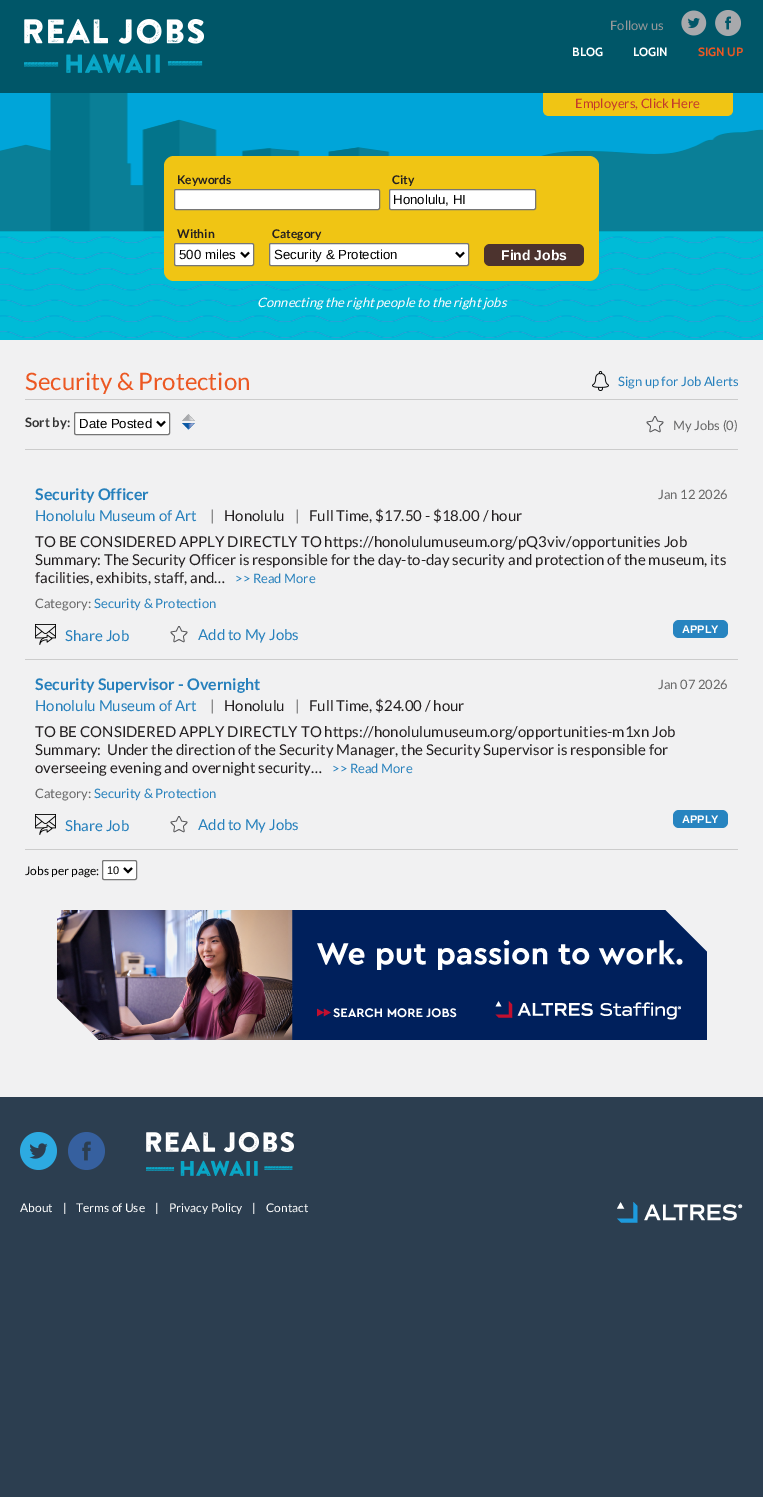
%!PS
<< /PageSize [763 1497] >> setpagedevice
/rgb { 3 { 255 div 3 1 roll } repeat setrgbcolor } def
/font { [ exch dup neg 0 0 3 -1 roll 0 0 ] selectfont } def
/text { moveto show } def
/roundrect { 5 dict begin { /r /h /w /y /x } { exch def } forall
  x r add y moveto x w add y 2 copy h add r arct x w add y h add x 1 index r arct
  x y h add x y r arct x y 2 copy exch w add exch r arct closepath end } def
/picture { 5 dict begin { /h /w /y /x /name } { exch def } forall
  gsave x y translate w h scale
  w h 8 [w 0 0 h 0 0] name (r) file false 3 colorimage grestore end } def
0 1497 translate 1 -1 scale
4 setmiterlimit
44 62 80 rgb
0 0 763 1497 rectfill
241 241 242 rgb
0 340 763 757 rectfill
0 86 104 rgb
0 0 763 93 rectfill
(img_01.rgb) 24 19 180 54 picture
(img_02.rgb) 681 10 60 26 picture
(img_03.rgb) 0 93 763 247 picture
240 197 20 rgb
543 93 moveto 190 0 rlineto 0 17 rlineto 0 3.5 -2.5 6 -6 6 rcurveto -178 0 rlineto -3.5 0 -6 -2.5 -6 -6 rcurveto closepath fill
164 156 435 125 10 roundrect fill
255 255 255 rgb
174.5 189.5 205 20 1.5 roundrect gsave fill grestore
118 118 118 rgb
stroke
255 255 255 rgb
389.5 189.5 146 20 1.5 roundrect gsave fill grestore
118 118 118 rgb
stroke
255 255 255 rgb
174.5 243.5 79 22 1.5 roundrect gsave fill grestore
118 118 118 rgb
stroke
0 0 0 rgb
2 setlinewidth
241 252.5 moveto 4 4 rlineto 4 -4 rlineto stroke
255 255 255 rgb
269.5 243.5 199 22 1.5 roundrect gsave fill grestore
118 118 118 rgb
1 setlinewidth
stroke
0 0 0 rgb
2 setlinewidth
456 252.5 moveto 4 4 rlineto 4 -4 rlineto stroke
76 51 46 rgb
484 244 100 22 6 roundrect fill
204 204 204 rgb
25 449 713 1 rectfill
25 399 713 1 rectfill
(img_04.rgb) 592 371 17 20 picture
255 255 255 rgb
74.5 412.5 95 22 1.5 roundrect gsave fill grestore
118 118 118 rgb
1 setlinewidth
stroke
0 0 0 rgb
2 setlinewidth
157 421.5 moveto 4 4 rlineto 4 -4 rlineto stroke
(img_05.rgb) 182 414 13 16 picture
(img_06.rgb) 646 416 18 17 picture
204 204 204 rgb
25 659 713 1 rectfill
(img_07.rgb) 35 624 21 21 picture
(img_06.rgb) 170 626 18 17 picture
39 132 192 rgb
673 620 55 18 6 roundrect fill
204 204 204 rgb
25 849 713 1 rectfill
(img_07.rgb) 35 814 21 21 picture
(img_06.rgb) 170 816 18 17 picture
39 132 192 rgb
673 810 55 18 6 roundrect fill
255 255 255 rgb
102.5 860.5 34 19 1.5 roundrect gsave fill grestore
118 118 118 rgb
1 setlinewidth
stroke
0 0 0 rgb
2 setlinewidth
124 868 moveto 4 4 rlineto 4 -4 rlineto stroke
(img_08.rgb) 57 910 650 130 picture
(img_09.rgb) 20 1132 37 38 picture
(img_10.rgb) 68 1132 37 38 picture
(img_11.rgb) 146 1132 148 44 picture
(img_12.rgb) 617 1202 126 21 picture
/Lato-Regular 13 font
153 153 153 rgb
(Follow us) 610 30 text
/Cabin-Bold 12 font
255 255 255 rgb
(BLOG) 572 56 text
(LOGIN) 633 56 text
236 88 35 rgb
(SIGN UP) 698 56 text
/Lato-Regular 13 font
194 56 45 rgb
(Employers, Click Here) 575 108 text
/Lato-Bold 12 font
35 31 32 rgb
(Keywords) 177 184 text
(City) 392 184 text
/LiberationSans-Regular 13.25 font
0 0 0 rgb
(Honolulu, HI) 393 204 text
/Lato-Bold 12 font
35 31 32 rgb
(Within) 177 238 text
/LiberationSans-Regular 13.25 font
0 0 0 rgb
(500 miles) 179 259 text
/Lato-Bold 12 font
35 31 32 rgb
(Category) 272 238 text
/LiberationSans-Regular 13.25 font
0 0 0 rgb
(Security & Protection) 274 259 text
/LiberationSans-Bold 14 font
255 255 255 rgb
(Find Jobs) 501 260 text
/Lato-Italic 13 font
(Connecting the right people to the right jobs) 257 307 text
/Lato-Regular 24 font
236 88 35 rgb
(Security & Protection) 25 390 text
/Lato-Regular 13 font
38 128 188 rgb
(Sign up for Job Alerts) 618 386 text
/Lato-Bold 13 font
51 51 51 rgb
(Sort by:) 25 427 text
/LiberationSans-Regular 13.25 font
0 0 0 rgb
(Date Posted) 79 428 text
/Lato-Regular 13 font
102 102 102 rgb
(My Jobs \(0\)) 673 430 text
/Lato-Bold 16 font
38 128 188 rgb
(Security Officer) 35 500 text
/Lato-Regular 13 font
102 102 102 rgb
(Jan 12 2026) 658 499 text
/Lato-Regular 15 font
38 128 188 rgb
(Honolulu Museum of Art) 35 521 text
102 102 102 rgb
(|) 210 521 text
35 31 32 rgb
(Honolulu) 224 521 text
102 102 102 rgb
(|) 295 521 text
35 31 32 rgb
(Full Time, $17.50 - $18.00 / hour) 309 521 text
(TO BE CONSIDERED APPLY DIRECTLY TO https://honolulumuseum.org/pQ3viv/opportunities Job) 35 547 text
(Summary: The Security Officer is responsible for the day-to-day security and protection of the museum, its) 35 565 text
(facilities, exhibits, staff, and…) 35 583 text
/Lato-Regular 13 font
38 128 188 rgb
(>> Read More) 235 583 text
102 102 102 rgb
(Category:) 35 608 text
38 128 188 rgb
(Security & Protection) 94 608 text
/Lato-Regular 15 font
(Share Job) 65 641 text
(Add to My Jobs) 198 640 text
/LiberationSans-Bold 11 font
255 255 255 rgb
(APPLY) 682 633 text
/Lato-Bold 16 font
38 128 188 rgb
(Security Supervisor - Overnight) 35 690 text
/Lato-Regular 13 font
102 102 102 rgb
(Jan 07 2026) 658 689 text
/Lato-Regular 15 font
38 128 188 rgb
(Honolulu Museum of Art) 35 711 text
102 102 102 rgb
(|) 210 711 text
35 31 32 rgb
(Honolulu) 224 711 text
102 102 102 rgb
(|) 295 711 text
35 31 32 rgb
(Full Time, $24.00 / hour) 309 711 text
(TO BE CONSIDERED APPLY DIRECTLY TO https://honolulumuseum.org/opportunities-m1xn Job) 35 737 text
(Summary:  Under the direction of the Security Manager, the Security Supervisor is responsible for) 35 755 text
(overseeing evening and overnight security…) 35 773 text
/Lato-Regular 13 font
38 128 188 rgb
(>> Read More) 332 773 text
102 102 102 rgb
(Category:) 35 798 text
38 128 188 rgb
(Security & Protection) 94 798 text
/Lato-Regular 15 font
(Share Job) 65 831 text
(Add to My Jobs) 198 830 text
/LiberationSans-Bold 11 font
255 255 255 rgb
(APPLY) 682 823 text
/Lato-Regular 12 font
0 0 0 rgb
(Jobs per page:) 25 875 text
/LiberationSans-Regular 11 font
(10) 107 874 text
/Lato-Regular 12 font
255 255 255 rgb
(About) 20 1212 text
(|) 63 1212 text
(Terms of Use) 76 1212 text
(|) 155 1212 text
(Privacy Policy) 169 1212 text
(|) 252 1212 text
(Contact) 266 1212 text
showpage
